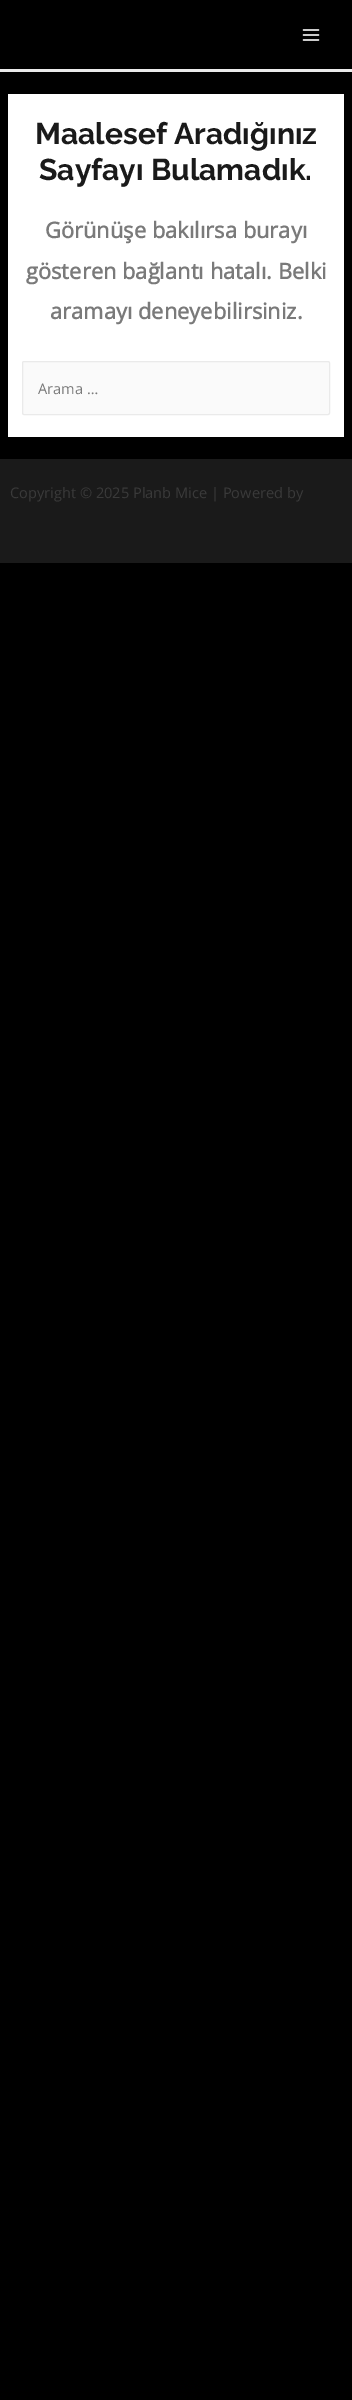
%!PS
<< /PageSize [352 2400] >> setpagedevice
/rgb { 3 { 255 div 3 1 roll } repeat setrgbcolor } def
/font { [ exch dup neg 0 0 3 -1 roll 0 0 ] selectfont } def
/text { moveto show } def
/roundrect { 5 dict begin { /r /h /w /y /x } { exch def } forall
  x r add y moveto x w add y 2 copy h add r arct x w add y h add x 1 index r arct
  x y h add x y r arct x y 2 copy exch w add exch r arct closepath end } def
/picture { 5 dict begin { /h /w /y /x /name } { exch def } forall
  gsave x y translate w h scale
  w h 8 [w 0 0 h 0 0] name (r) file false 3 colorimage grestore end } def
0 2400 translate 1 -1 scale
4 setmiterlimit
0 0 0 rgb
0 0 352 2400 rectfill
234 234 234 rgb
0 69 352 3 rectfill
(img_01.rgb) 302 29 18 12 picture
255 255 255 rgb
8 94 336 343 rectfill
250 250 250 rgb
22.5 361.5 307 53 1.5 roundrect gsave fill grestore
234 234 234 rgb
stroke
26 26 26 rgb
0 459 352 104 rectfill
/Raleway-Thin 30 font
(Maalesef Aradığınız) 35 144 text
(Sayfayı Bulamadık.) 39 180 text
/OpenSans-Bold 21.9 font
122 122 122 rgb
(Görünüşe bakılırsa burayı) 45 238 text
(gösteren bağlantı hatalı. Belki) 26 279 text
(aramayı deneyebilirsiniz.) 50 319 text
/OpenSans-Regular 14.6 font
(Arama …) 38 394 text
58 58 58 rgb
(Copyright © 2025 Planb Mice | Powered by) 10 498 text
showpage
